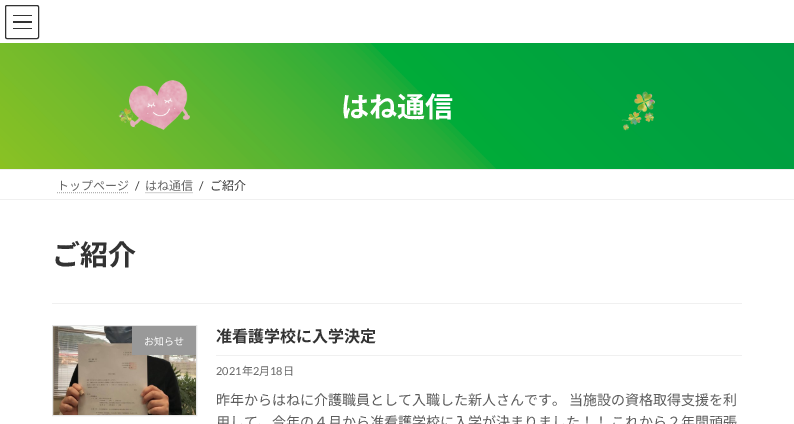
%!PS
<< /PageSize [794 424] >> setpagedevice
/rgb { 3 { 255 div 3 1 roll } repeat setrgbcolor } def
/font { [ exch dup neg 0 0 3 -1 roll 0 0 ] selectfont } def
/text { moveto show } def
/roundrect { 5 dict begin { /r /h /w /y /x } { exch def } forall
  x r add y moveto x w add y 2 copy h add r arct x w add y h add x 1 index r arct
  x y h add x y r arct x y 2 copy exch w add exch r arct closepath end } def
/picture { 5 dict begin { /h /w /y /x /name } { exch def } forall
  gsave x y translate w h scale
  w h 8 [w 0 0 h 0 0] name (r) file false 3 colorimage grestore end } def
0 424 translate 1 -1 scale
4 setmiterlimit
255 255 255 rgb
0 0 794 424 rectfill
51 51 51 rgb
13 15 19 1 rectfill
13 21 19 2 rectfill
13 28 19 1 rectfill
5.5 5.5 33 33 1.5 roundrect stroke
(img_01.rgb) 0 43 794 126 picture
240 240 240 rgb
0 169 794 1 rectfill
0 199 794 1 rectfill
179 179 179 rgb
[1 1] 0 setdash
57 192.5 moveto 72 0 rlineto stroke
145.5 192.5 moveto 48 0 rlineto stroke
240 240 240 rgb
52 303 690 1 rectfill
(img_02.rgb) 53 326 143 89 picture
229 229 229 rgb
[] 0 setdash
52.5 325.5 144 90 rectstroke
153 153 153 rgb
132 326 64 29 rectfill
240 240 240 rgb
216 355 526 1 rectfill
/NotoSansJP-Bold 28 font
255 255 255 rgb
(はね通信) 341 117 text
/NotoSansJP-Regular 12 font
102 102 102 rgb
(トップページ) 57 190 text
/Lato-Regular 12 font
51 51 51 rgb
(/) 135 190 text
/NotoSansJP-Regular 12 font
102 102 102 rgb
(はね通信) 145 190 text
/Lato-Regular 12 font
51 51 51 rgb
(/) 199 190 text
/NotoSansJP-Regular 12 font
(ご紹介) 210 190 text
/NotoSansJP-Bold 28 font
(ご紹介) 52 265 text
/NotoSansJP-Regular 10 font
255 255 255 rgb
(お知らせ) 144 345 text
/NotoSansJP-Bold 16 font
51 51 51 rgb
(准看護学校に入学決定) 216 342 text
/Lato-Regular 11 font
102 102 102 rgb
(2021) 216 375 text
/NotoSansJP-Regular 11 font
(年) 242 375 text
/Lato-Regular 11 font
(2) 253 375 text
/NotoSansJP-Regular 11 font
(月) 259 375 text
/Lato-Regular 11 font
(18) 270 375 text
/NotoSansJP-Regular 11 font
(日) 283 375 text
/NotoSansJP-Regular 14 font
92 92 92 rgb
(昨年からはねに介護職員として入職した新人さんです。 当施設の資格取得支援を利) 216 405 text
(用して、今年の４月から准看護学校に入学が決まりました！！ これから２年間頑張) 216 427 text
showpage
